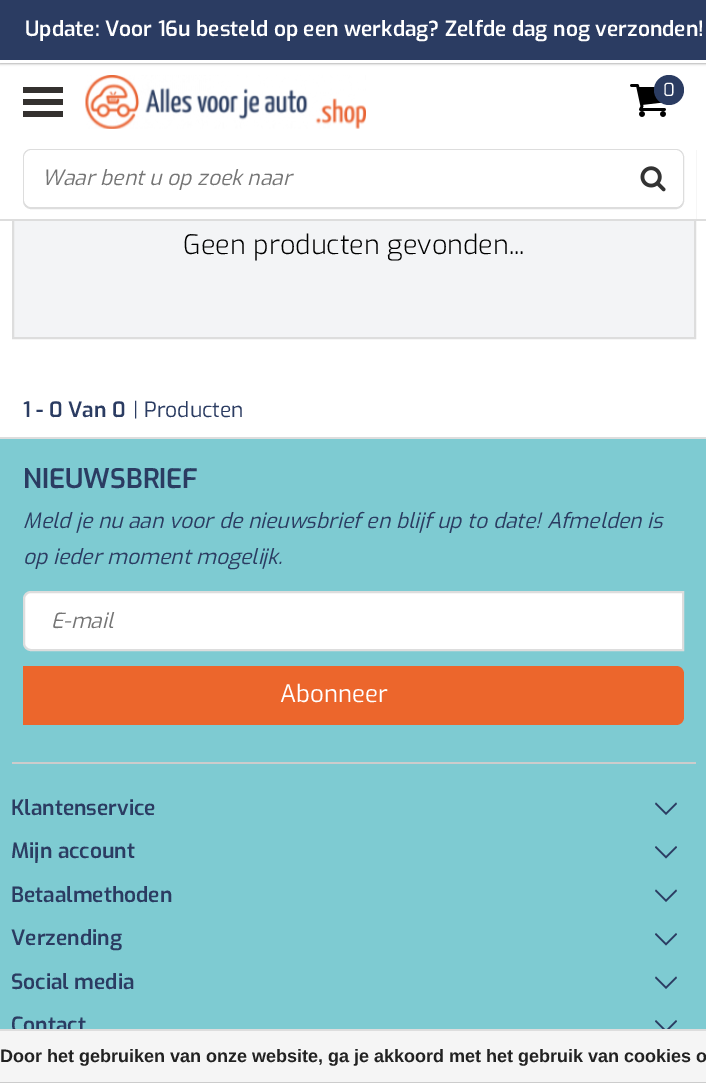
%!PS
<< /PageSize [706 1083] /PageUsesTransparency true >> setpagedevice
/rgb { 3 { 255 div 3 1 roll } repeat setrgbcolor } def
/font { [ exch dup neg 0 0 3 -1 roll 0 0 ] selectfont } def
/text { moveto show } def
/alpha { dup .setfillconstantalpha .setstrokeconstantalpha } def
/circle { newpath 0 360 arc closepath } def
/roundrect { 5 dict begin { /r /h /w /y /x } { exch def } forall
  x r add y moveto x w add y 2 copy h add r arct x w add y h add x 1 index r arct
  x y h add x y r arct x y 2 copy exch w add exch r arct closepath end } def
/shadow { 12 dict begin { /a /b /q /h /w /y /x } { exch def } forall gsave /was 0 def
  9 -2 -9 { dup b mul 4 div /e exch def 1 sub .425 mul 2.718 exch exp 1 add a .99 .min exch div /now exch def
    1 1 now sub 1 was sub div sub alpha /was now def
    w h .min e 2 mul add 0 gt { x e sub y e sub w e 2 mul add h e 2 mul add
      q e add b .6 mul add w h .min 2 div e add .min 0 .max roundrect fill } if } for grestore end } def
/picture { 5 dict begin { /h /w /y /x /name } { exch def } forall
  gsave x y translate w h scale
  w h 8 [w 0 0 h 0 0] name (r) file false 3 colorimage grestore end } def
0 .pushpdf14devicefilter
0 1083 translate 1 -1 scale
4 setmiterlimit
255 255 255 rgb
0 0 706 1083 rectfill
0 0 0 rgb
0 0 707 63 0 1.5 0.5 shadow
43 60 98 rgb
0 0 706 60 rectfill
255 255 255 rgb
0 60 706 3 rectfill
243 244 246 rgb
14 221 680 116 rectfill
221 221 221 rgb
2 setlinewidth
13 151 682 187 rectstroke
255 255 255 rgb
12 150 684 69 rectfill
221 221 221 rgb
0 219 706 2 rectfill
52 49 47 rgb
23 87 40 6 rectfill
23 99 40 6 rectfill
23 111 40 6 rectfill
(img_01.rgb) 85 75 281 54 picture
(img_02.rgb) 630 84 36 33 picture
43 60 98 rgb
669 90 15 circle fill
221 221 221 rgb
24 150 659 58 7 roundrect stroke
255 255 255 rgb
24 150 659 57 8 roundrect fill
679 205 1 1 rectfill
(img_03.rgb) 640 166 26 26 picture
126 203 210 rgb
0 439 706 590 rectfill
221 221 221 rgb
0 437 706 2 rectfill
255 255 255 rgb
31 592 moveto 652 0 rlineto 0 58 rlineto -652 0 rlineto -4 0 -7 -3 -7 -7 rcurveto 0 -44 rlineto 0 -4 3 -7 7 -7 rcurveto closepath gsave fill grestore
221 221 221 rgb
stroke
236 102 44 rgb
23 666 moveto 653 0 rlineto 4.5 0 8 3.5 8 8 rcurveto 0 43 rlineto 0 4.5 -3.5 8 -8 8 rcurveto -653 0 rlineto closepath fill
204 204 204 rgb
12 762 684 2 rectfill
43 60 98 rgb
664.5 813.5 moveto 1.5 1.5 rlineto 11 -11 rlineto -1 -1.5 rlineto -10 10 rlineto -10 -10 rlineto -1 1.5 rlineto closepath fill
664.5 857 moveto 1.5 1.5 rlineto 11 -11 rlineto -1 -1.5 rlineto -10 10 rlineto -10 -10 rlineto -1 1.5 rlineto closepath fill
664.5 900.5 moveto 1.5 1.5 rlineto 11 -11 rlineto -1 -1.5 rlineto -10 10 rlineto -10 -10 rlineto -1 1.5 rlineto closepath fill
664.5 944 moveto 1.5 1.5 rlineto 11 -11 rlineto -1 -1.5 rlineto -10 10 rlineto -10 -10 rlineto -1 1.5 rlineto closepath fill
664.5 987.5 moveto 1.5 1.5 rlineto 11 -11 rlineto -1 -1.5 rlineto -10 10 rlineto -10 -10 rlineto -1 1.5 rlineto closepath fill
664.5 1031 moveto 1.5 1.5 rlineto 11 -11 rlineto -1 -1.5 rlineto -10 10 rlineto -10 -10 rlineto -1 1.5 rlineto closepath fill
204 204 204 rgb
0 1082 706 1 rectfill
/Exo-SemiBold 21 font
255 255 255 rgb
(Update: Voor 16u besteld op een werkdag? Zelfde dag nog verzonden!) 25 36 text
/Exo-Regular 18 font
(0) 663 96 text
/Exo-Italic 21 font
117 117 117 rgb
(Waar bent u op zoek naar) 42 185 text
/Exo-Light 27 font
0 0 0 rgb
(Geen producten gevonden...) 183 254 text
/Exo-SemiBold 21 font
43 60 98 rgb
(1 - 0 Van 0) 23 417 text
/Exo-Regular 21 font
(| Producten) 133 417 text
/Exo-SemiBold 27 font
(NIEUWSBRIEF) 23 488 text
/Exo-Italic 21 font
(Meld je nu aan voor de nieuwsbrief en blijf up to date! Afmelden is) 23 528 text
(op ieder moment mogelijk.) 23 564 text
117 117 117 rgb
(E-mail) 51 628 text
/Exo-Regular 24 font
255 255 255 rgb
(Abonneer) 280 702 text
/Exo-SemiBold 21 font
43 60 98 rgb
(Klantenservice) 11 815 text
(Mijn account) 11 858 text
(Betaalmethoden) 11 902 text
(Verzending) 11 945 text
(Social media) 11 989 text
(Contact) 11 1032 text
245 245 245 rgb
0 1031 706 51 rectfill
221 221 221 rgb
0 1029 706 2 rectfill
/LiberationSans-Bold 18 font
34 34 34 rgb
(Door het gebruiken van onze website, ga je akkoord met het gebruik van cookies o) 0 1062 text
.poppdf14devicefilter showpage
